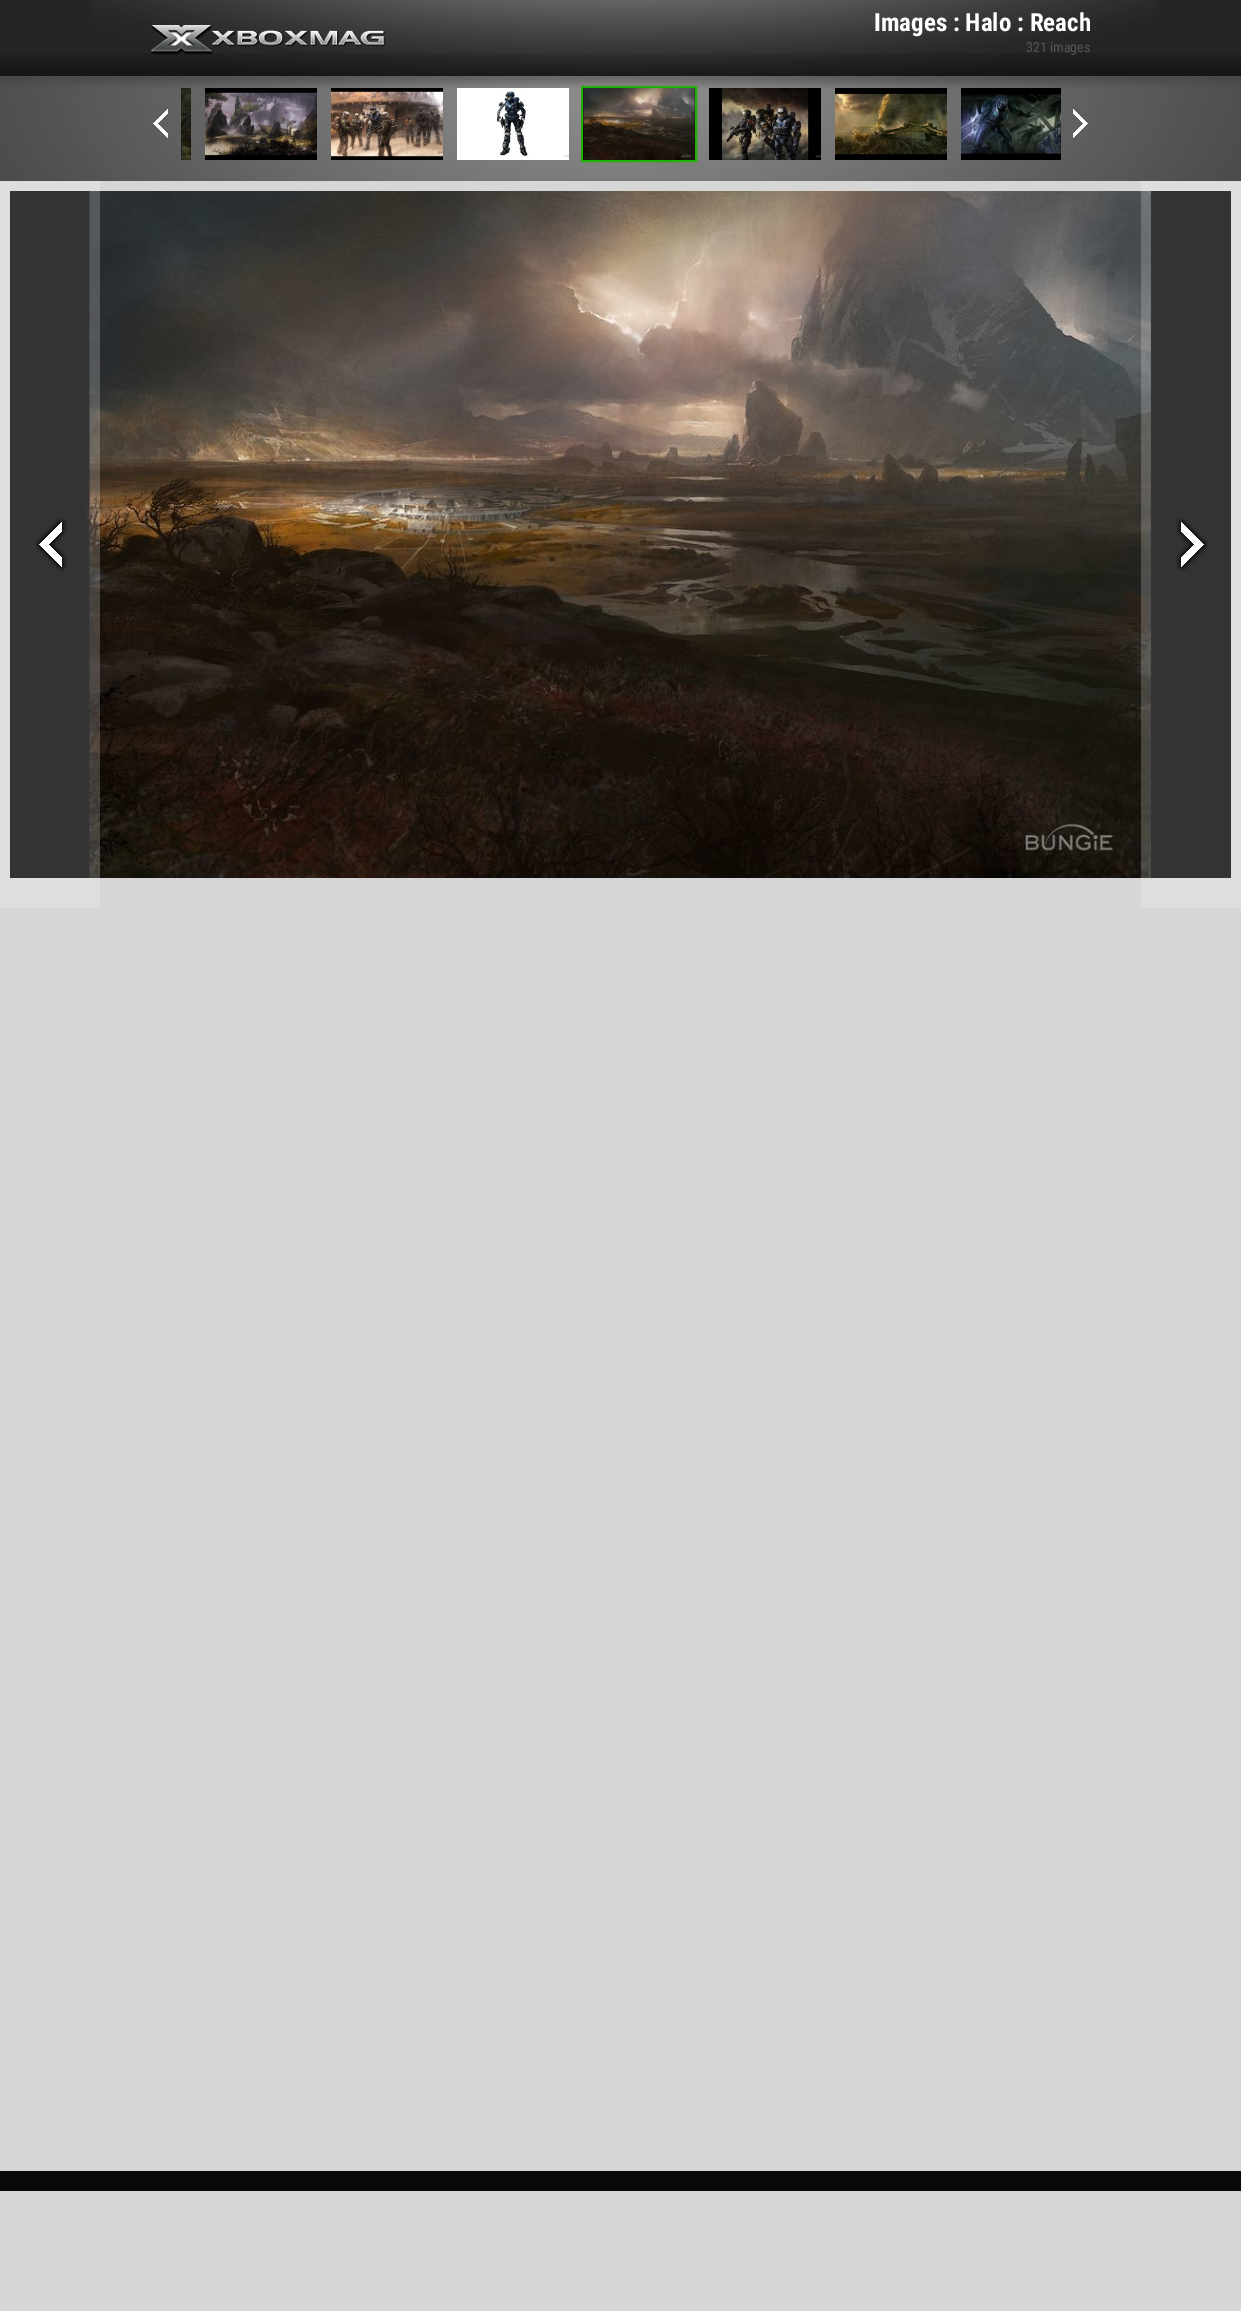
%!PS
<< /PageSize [1241 2311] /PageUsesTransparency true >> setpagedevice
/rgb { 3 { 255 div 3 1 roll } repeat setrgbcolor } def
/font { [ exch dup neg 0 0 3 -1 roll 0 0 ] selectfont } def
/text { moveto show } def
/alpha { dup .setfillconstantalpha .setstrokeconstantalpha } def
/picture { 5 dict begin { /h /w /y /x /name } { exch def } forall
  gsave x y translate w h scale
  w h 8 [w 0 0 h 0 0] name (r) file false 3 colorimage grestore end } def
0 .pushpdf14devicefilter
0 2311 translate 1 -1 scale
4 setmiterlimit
214 214 214 rgb
0 0 1241 2311 rectfill
37 37 37 rgb
0 0 1241 53 rectfill
(img_01.rgb) 0 53 1241 23 picture
(img_02.rgb) 91 0 1068 76 picture
(img_03.rgb) 151 25 235 30 picture
65 65 65 rgb
0 76 1241 105 rectfill
(img_04.rgb) 0 76 1241 105 picture
(img_05.rgb) 153 109 15 29 picture
(img_06.rgb) 181 88 10 72 picture
(img_07.rgb) 205 88 112 72 picture
(img_08.rgb) 331 88 112 72 picture
(img_09.rgb) 457 88 112 72 picture
29 177 0 rgb
2 setlinewidth
582 87 114 74 rectstroke
(img_10.rgb) 583 88 112 72 picture
(img_11.rgb) 709 88 112 72 picture
(img_12.rgb) 835 88 112 72 picture
(img_13.rgb) 961 88 100 72 picture
(img_14.rgb) 1073 109 15 29 picture
(img_17.rgb) 10 191 1221 687 picture
0.2 alpha
255 255 255 rgb
0 181 100 727 rectfill
1 alpha
(img_15.rgb) 35 518 32 53 picture
0.2 alpha
1141 181 100 727 rectfill
1 alpha
(img_16.rgb) 1176 518 32 53 picture
8 8 8 rgb
0 2171 1241 20 rectfill
/RobotoCondensed-Bold 25 font
255 255 255 rgb
(Images : Halo : Reach) 874 31 text
/RobotoCondensed-Regular 14 font
84 84 84 rgb
(321 images) 1026 52 text
.poppdf14devicefilter showpage
